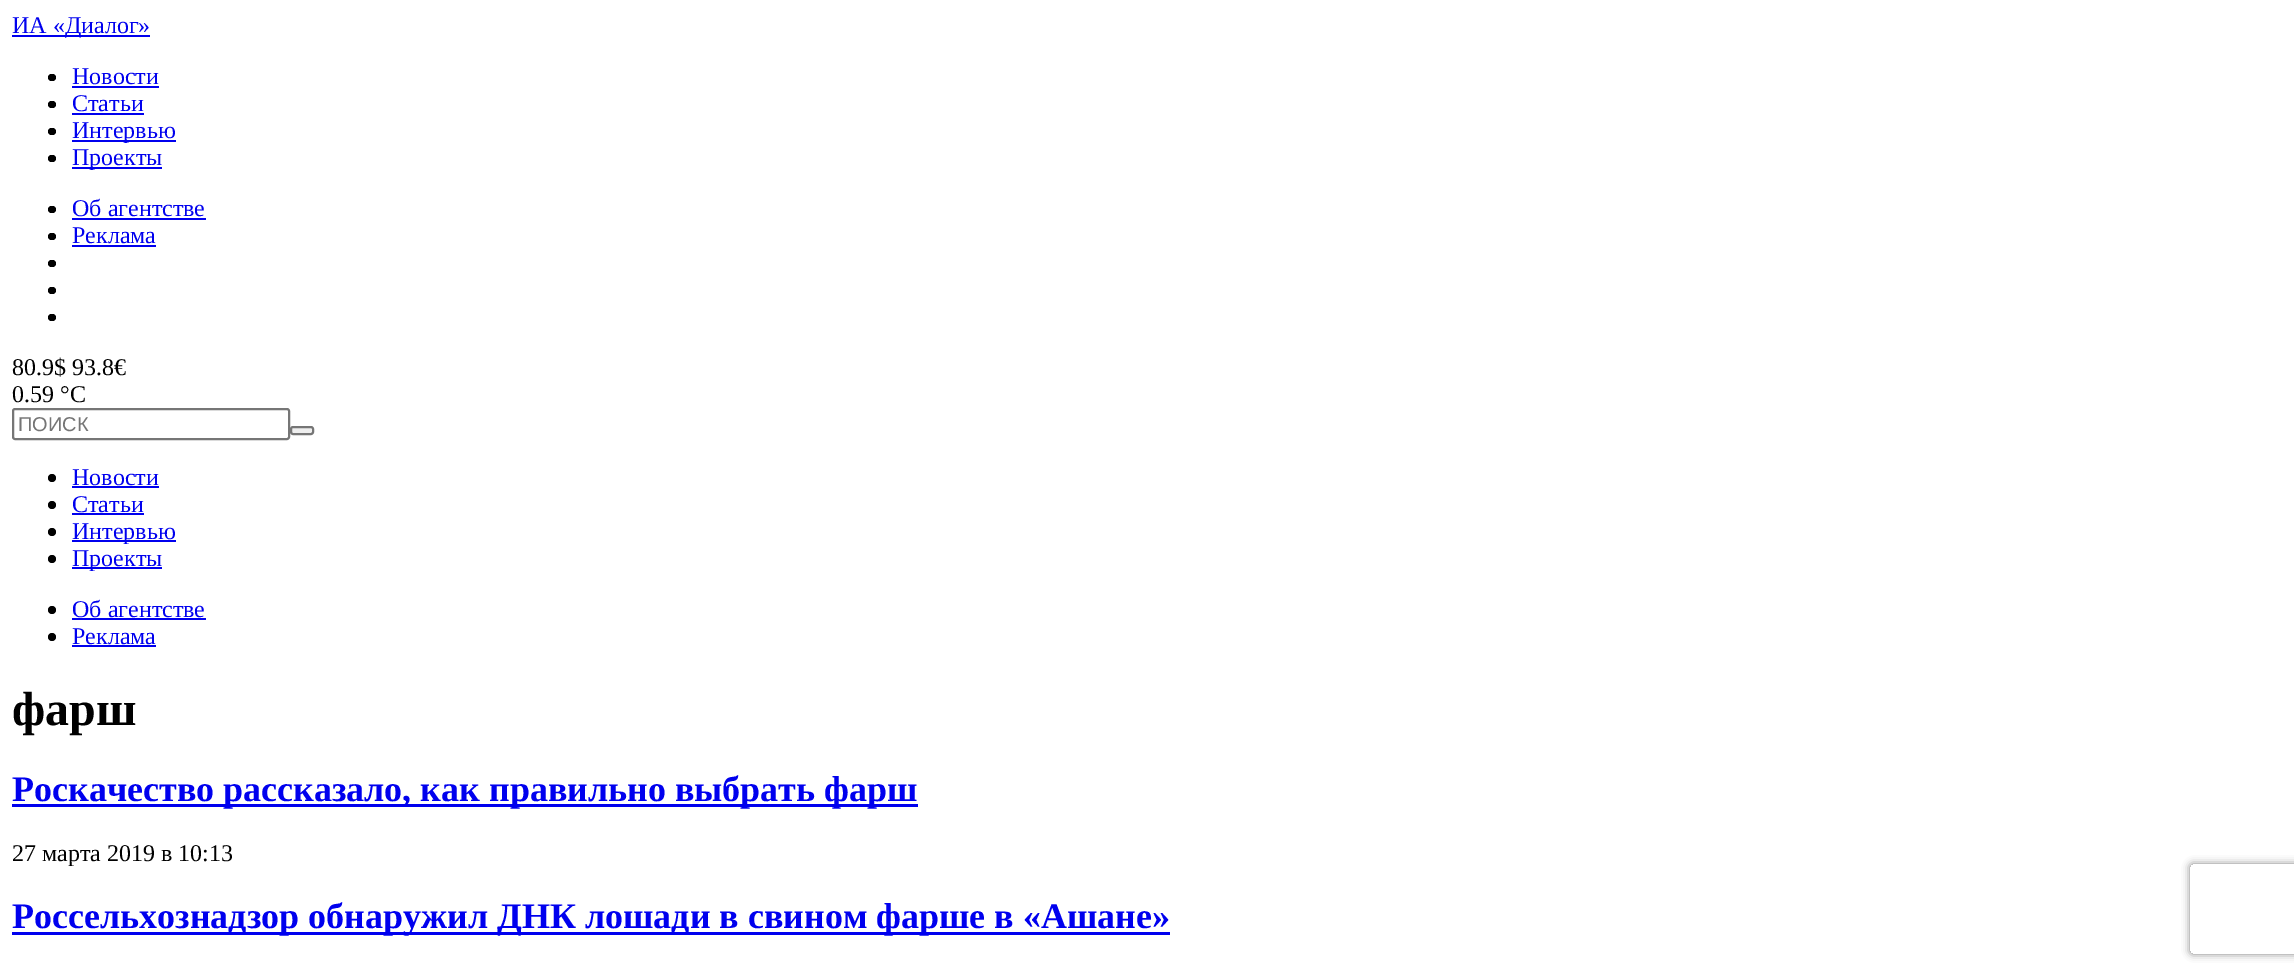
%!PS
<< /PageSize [2294 974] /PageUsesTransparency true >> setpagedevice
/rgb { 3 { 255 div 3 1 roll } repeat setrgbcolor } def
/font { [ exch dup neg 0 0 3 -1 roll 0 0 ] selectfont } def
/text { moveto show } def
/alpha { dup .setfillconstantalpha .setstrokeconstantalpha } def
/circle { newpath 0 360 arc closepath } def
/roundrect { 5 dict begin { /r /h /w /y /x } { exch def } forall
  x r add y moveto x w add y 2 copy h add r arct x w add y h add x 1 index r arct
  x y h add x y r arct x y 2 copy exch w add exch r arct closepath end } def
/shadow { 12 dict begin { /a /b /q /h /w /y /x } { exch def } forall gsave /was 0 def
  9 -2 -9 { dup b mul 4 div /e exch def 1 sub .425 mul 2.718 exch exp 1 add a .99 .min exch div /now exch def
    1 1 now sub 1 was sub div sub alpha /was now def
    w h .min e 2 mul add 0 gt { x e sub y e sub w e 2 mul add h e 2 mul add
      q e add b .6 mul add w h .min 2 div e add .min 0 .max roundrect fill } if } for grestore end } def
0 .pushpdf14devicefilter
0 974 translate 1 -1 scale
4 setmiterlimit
255 255 255 rgb
0 0 2294 974 rectfill
0 0 238 rgb
12 35 138 2 rectfill
0 0 0 rgb
48 74 8 7 3.5 roundrect fill
0 0 238 rgb
72 86 87 2 rectfill
0 0 0 rgb
48 101 8 7 3.5 roundrect fill
0 0 238 rgb
72 113 72 2 rectfill
0 0 0 rgb
48 128 8 7 3.5 roundrect fill
0 0 238 rgb
72 140 104 2 rectfill
0 0 0 rgb
48 155 8 7 3.5 roundrect fill
0 0 238 rgb
72 167 90 2 rectfill
0 0 0 rgb
48 206 8 7 3.5 roundrect fill
0 0 238 rgb
72 218 134 2 rectfill
0 0 0 rgb
48 233 8 7 3.5 roundrect fill
0 0 238 rgb
72 245 84 2 rectfill
0 0 0 rgb
48 260 8 7 3.5 roundrect fill
48 287 8 7 3.5 roundrect fill
48 314 8 7 3.5 roundrect fill
118 118 118 rgb
2 setlinewidth
13 409 276 30 2 roundrect stroke
239 239 239 rgb
291 427 22 7 2 roundrect gsave fill grestore
118 118 118 rgb
stroke
0 0 0 rgb
52 478 4 circle fill
0 0 238 rgb
72 486 87 2 rectfill
0 0 0 rgb
52 505 4 circle fill
0 0 238 rgb
72 513 72 2 rectfill
0 0 0 rgb
52 532 4 circle fill
0 0 238 rgb
72 540 104 2 rectfill
0 0 0 rgb
52 559 4 circle fill
0 0 238 rgb
72 567 90 2 rectfill
0 0 0 rgb
52 610 4 circle fill
0 0 238 rgb
72 618 134 2 rectfill
0 0 0 rgb
52 637 4 circle fill
0 0 238 rgb
72 645 84 2 rectfill
12 804 906 3 rectfill
12 932 1158 3 rectfill
gsave
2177 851 moveto 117 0 rlineto 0 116 rlineto -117 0 rlineto closepath 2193 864 moveto 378 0 rlineto 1.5 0 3 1.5 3 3 rcurveto 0 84 rlineto 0 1.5 -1.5 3 -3 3 rcurveto -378 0 rlineto -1.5 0 -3 -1.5 -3 -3 rcurveto 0 -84 rlineto 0 -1.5 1.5 -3 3 -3 rcurveto closepath eoclip newpath
128 128 128 rgb
2190 864 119 90 3 4 1 shadow
grestore
/LiberationSerif-Regular 24 font
(ИА «Диалог») 12 33 text
(Новости) 72 84 text
(Статьи) 72 111 text
(Интервью) 72 138 text
(Проекты) 72 165 text
(Об агентстве) 72 216 text
(Реклама) 72 243 text
0 0 0 rgb
(80.9$ 93.8€) 12 375 text
(0.59 °С) 12 402 text
/LiberationSans-Regular 20 font
117 117 117 rgb
(ПОИСК) 18 431 text
/LiberationSerif-Regular 24 font
0 0 238 rgb
(Новости) 72 485 text
(Статьи) 72 512 text
(Интервью) 72 539 text
(Проекты) 72 566 text
(Об агентстве) 72 617 text
(Реклама) 72 644 text
/LiberationSerif-Bold 48 font
0 0 0 rgb
(фарш) 12 725 text
/LiberationSerif-Bold 36 font
0 0 238 rgb
(Роскачество рассказало, как правильно выбрать фарш) 12 801 text
/LiberationSerif-Regular 24 font
0 0 0 rgb
(27 марта 2019 в 10:13) 12 861 text
/LiberationSerif-Bold 36 font
0 0 238 rgb
(Россельхознадзор обнаружил ДНК лошади в свином фарше в «Ашане») 12 928 text
.poppdf14devicefilter showpage
